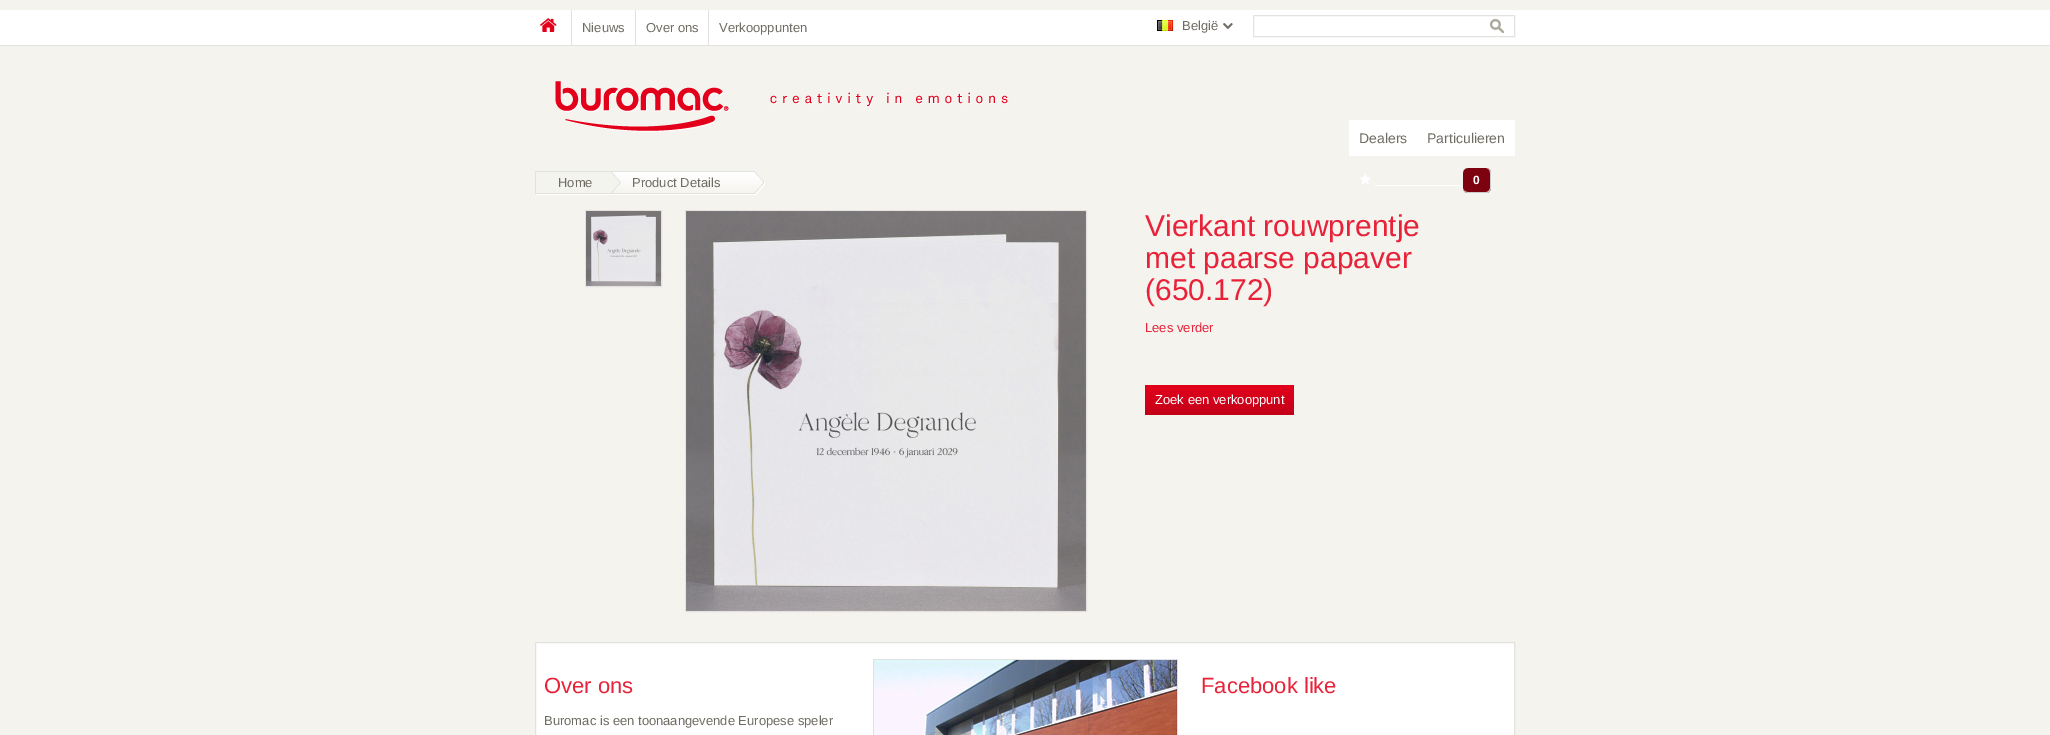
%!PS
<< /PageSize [2050 735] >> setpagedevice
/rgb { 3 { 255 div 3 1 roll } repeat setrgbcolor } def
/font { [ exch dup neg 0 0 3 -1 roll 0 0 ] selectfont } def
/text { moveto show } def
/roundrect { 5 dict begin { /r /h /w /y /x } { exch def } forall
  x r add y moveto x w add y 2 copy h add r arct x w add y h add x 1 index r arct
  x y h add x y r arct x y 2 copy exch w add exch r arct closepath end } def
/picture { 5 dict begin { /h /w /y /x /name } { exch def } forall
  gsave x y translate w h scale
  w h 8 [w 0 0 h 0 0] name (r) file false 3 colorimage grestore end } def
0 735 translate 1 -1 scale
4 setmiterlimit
245 243 238 rgb
0 0 2050 735 rectfill
255 255 255 rgb
0 10 2050 35 rectfill
226 225 222 rgb
0 45 2050 1 rectfill
571 10 1 35 rectfill
(img_01.rgb) 540 18 17 14 picture
635 10 1 35 rectfill
708 10 1 35 rectfill
(img_02.rgb) 1157 20 17 11 picture
(img_03.rgb) 1223 23 10 6 picture
227 226 223 rgb
1253.5 15.5 261 21 rectstroke
(img_04.rgb) 1490 19 14 14 picture
(img_05.rgb) 555 81 454 51 picture
(img_06.rgb) 535 171 85 24 picture
(img_07.rgb) 611 171 124 24 picture
(img_08.rgb) 735 171 30 24 picture
255 255 255 rgb
1349 120 166 36 rectfill
(img_09.rgb) 1360 174 11 10 picture
1375 185 85 1 rectfill
126 1 15 rgb
1463 168 28 25 5 roundrect fill
204 204 204 rgb
1468 168 moveto 18 0 rlineto 3 0 5 2 5 5 rcurveto 0 15 rlineto 0 3 -2 5 -5 5 rcurveto -18 0 rlineto -3 0 -5 -2 -5 -5 rcurveto 0 -15 rlineto 0 -3 2 -5 5 -5 rcurveto closepath 1468 168 moveto 18 0 rlineto 2 0 4 2 4 5 rcurveto 0 15 rlineto 0 2 -2 4 -4 4 rcurveto -18 0 rlineto -3 0 -5 -2 -5 -4 rcurveto 0 -15 rlineto 0 -3 2 -5 5 -5 rcurveto closepath eofill
227 226 223 rgb
585.5 210.5 76 76 rectstroke
(img_10.rgb) 586 211 75 75 picture
685.5 210.5 401 401 rectstroke
(img_11.rgb) 686 211 400 400 picture
gsave 1145 385 moveto 149 0 rlineto 0 30 rlineto -149 0 rlineto closepath clip newpath
<< /ShadingType 2 /ColorSpace /DeviceRGB /Coords [1145 385 1145 415] /Extend [true true] /Function << /FunctionType 2 /Domain [0 1] /C0 [0.89 0 0.106] /C1 [0.761 0.004 0.094] /N 1 >> >> shfill grestore
255 255 255 rgb
535.5 642.5 moveto 979 0 rlineto 0 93 rlineto -979 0 rlineto closepath gsave fill grestore
227 226 223 rgb
stroke
(img_12.rgb) 873 659 305 76 picture
/LiberationSans-Regular 13 font
111 108 99 rgb
(Nieuws) 582 32 text
(Over ons) 646 32 text
(Verkooppunten) 719 32 text
(België) 1182 30 text
(Home) 558 187 text
(Product Details) 632 187 text
/LiberationSans-Regular 14 font
(Dealers) 1359 143 text
(Particulieren) 1427 143 text
/LiberationSans-Bold 12 font
255 255 255 rgb
(0) 1473 184 text
/LiberationSans-Regular 30 font
231 34 57 rgb
(Vierkant rouwprentje) 1145 236 text
(met paarse papaver) 1145 268 text
(\(650.172\)) 1145 300 text
/LiberationSans-Regular 13 font
(Lees verder) 1145 332 text
255 255 255 rgb
(Zoek een verkooppunt) 1155 404 text
/LiberationSans-Regular 22 font
231 34 57 rgb
(Over ons) 544 693 text
/LiberationSans-Regular 13 font
111 108 99 rgb
(Buromac is een toonaangevende Europese speler) 544 725 text
/LiberationSans-Regular 22 font
231 34 57 rgb
(Facebook like) 1201 693 text
showpage
